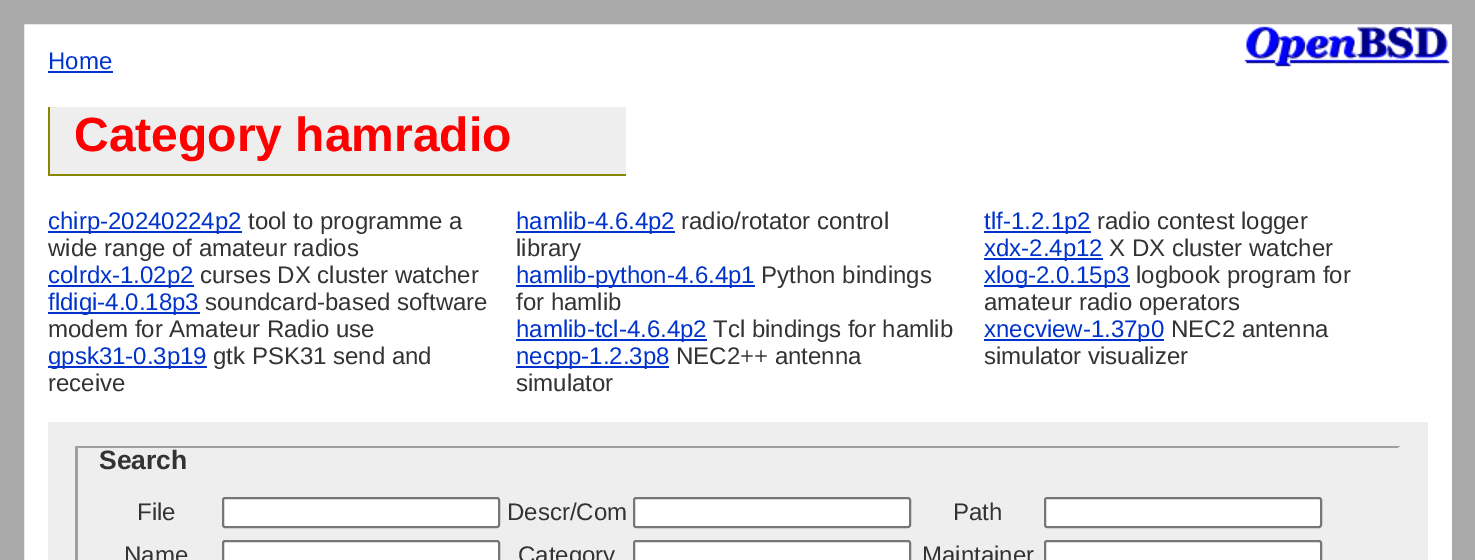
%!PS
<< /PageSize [1475 560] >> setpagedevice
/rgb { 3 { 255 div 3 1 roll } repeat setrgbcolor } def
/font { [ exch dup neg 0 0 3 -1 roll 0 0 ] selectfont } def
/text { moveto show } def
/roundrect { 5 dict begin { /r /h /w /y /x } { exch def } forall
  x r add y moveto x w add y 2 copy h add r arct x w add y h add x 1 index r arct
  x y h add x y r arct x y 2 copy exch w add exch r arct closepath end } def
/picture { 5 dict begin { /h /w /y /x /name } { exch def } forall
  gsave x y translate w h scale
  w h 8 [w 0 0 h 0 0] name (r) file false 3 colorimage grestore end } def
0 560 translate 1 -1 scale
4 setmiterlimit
255 255 255 rgb
0 0 1475 560 rectfill
(img_01.rgb) 1244 26 206 41 picture
170 170 170 rgb
24 setlinewidth
12 12 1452 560 rectstroke
0 51 204 rgb
48 71 65 2 rectfill
238 238 238 rgb
50 107 576 67 rectfill
136 136 0 rgb
48 174 578 2 rectfill
48 107 2 69 rectfill
0 51 204 rgb
48 231 194 2 rectfill
516 231 159 2 rectfill
984 231 107 2 rectfill
984 258 119 2 rectfill
48 285 146 2 rectfill
516 285 239 2 rectfill
984 285 146 2 rectfill
48 312 152 2 rectfill
516 339 191 2 rectfill
984 339 180 2 rectfill
48 366 159 2 rectfill
516 366 153 2 rectfill
238 238 238 rgb
48 422 1380 138 rectfill
159 159 159 rgb
75 446 moveto 1326 0 rlineto -3 2 rlineto -1320 0 rlineto closepath fill
239 239 239 rgb
1401 446 moveto 0 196 rlineto -3 -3 rlineto 0 -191 rlineto closepath fill
159 159 159 rgb
75 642 moveto 0 -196 rlineto 3 2 rlineto 0 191 rlineto closepath fill
255 255 255 rgb
223 498 276 29 2 roundrect gsave fill grestore
118 118 118 rgb
2 setlinewidth
stroke
255 255 255 rgb
634 498 276 29 2 roundrect gsave fill grestore
118 118 118 rgb
stroke
255 255 255 rgb
1045 498 276 29 2 roundrect gsave fill grestore
118 118 118 rgb
stroke
255 255 255 rgb
223 541 276 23 2 roundrect gsave fill grestore
118 118 118 rgb
stroke
255 255 255 rgb
634 541 276 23 2 roundrect gsave fill grestore
118 118 118 rgb
stroke
255 255 255 rgb
1045 541 276 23 2 roundrect gsave fill grestore
118 118 118 rgb
stroke
/LiberationSans-Regular 24 font
0 51 204 rgb
(Home) 48 69 text
/LiberationSans-Bold 48 font
255 0 0 rgb
(Category hamradio) 74 151 text
/LiberationSans-Regular 24 font
0 51 204 rgb
(chirp-20240224p2) 48 229 text
51 51 51 rgb
(tool to programme a) 248 229 text
(wide range of amateur radios) 48 256 text
0 51 204 rgb
(hamlib-4.6.4p2) 516 229 text
51 51 51 rgb
(radio/rotator control) 681 229 text
(library) 516 256 text
0 51 204 rgb
(tlf-1.2.1p2) 984 229 text
51 51 51 rgb
(radio contest logger) 1097 229 text
0 51 204 rgb
(xdx-2.4p12) 984 256 text
51 51 51 rgb
(X DX cluster watcher) 1109 256 text
0 51 204 rgb
(colrdx-1.02p2) 48 283 text
51 51 51 rgb
(curses DX cluster watcher) 200 283 text
0 51 204 rgb
(hamlib-python-4.6.4p1) 516 283 text
51 51 51 rgb
(Python bindings) 761 283 text
(for hamlib) 516 310 text
0 51 204 rgb
(xlog-2.0.15p3) 984 283 text
51 51 51 rgb
(logbook program for) 1136 283 text
(amateur radio operators) 984 310 text
0 51 204 rgb
(fldigi-4.0.18p3) 48 310 text
51 51 51 rgb
(soundcard-based software) 205 310 text
(modem for Amateur Radio use) 48 337 text
0 51 204 rgb
(hamlib-tcl-4.6.4p2) 516 337 text
51 51 51 rgb
(Tcl bindings for hamlib) 713 337 text
0 51 204 rgb
(xnecview-1.37p0) 984 337 text
51 51 51 rgb
(NEC2 antenna) 1171 337 text
(simulator visualizer) 984 364 text
0 51 204 rgb
(gpsk31-0.3p19) 48 364 text
51 51 51 rgb
(gtk PSK31 send and) 213 364 text
(receive) 48 391 text
0 51 204 rgb
(necpp-1.2.3p8) 516 364 text
51 51 51 rgb
(NEC2++ antenna) 676 364 text
(simulator) 516 391 text
/LiberationSans-Bold 26.5 font
(Search) 99 469 text
/LiberationSans-Regular 24 font
(File) 137 520 text
(Descr/Com) 507 520 text
(Path) 953 520 text
(Name) 124 563 text
(Category) 518 563 text
(Maintainer) 922 563 text
showpage
